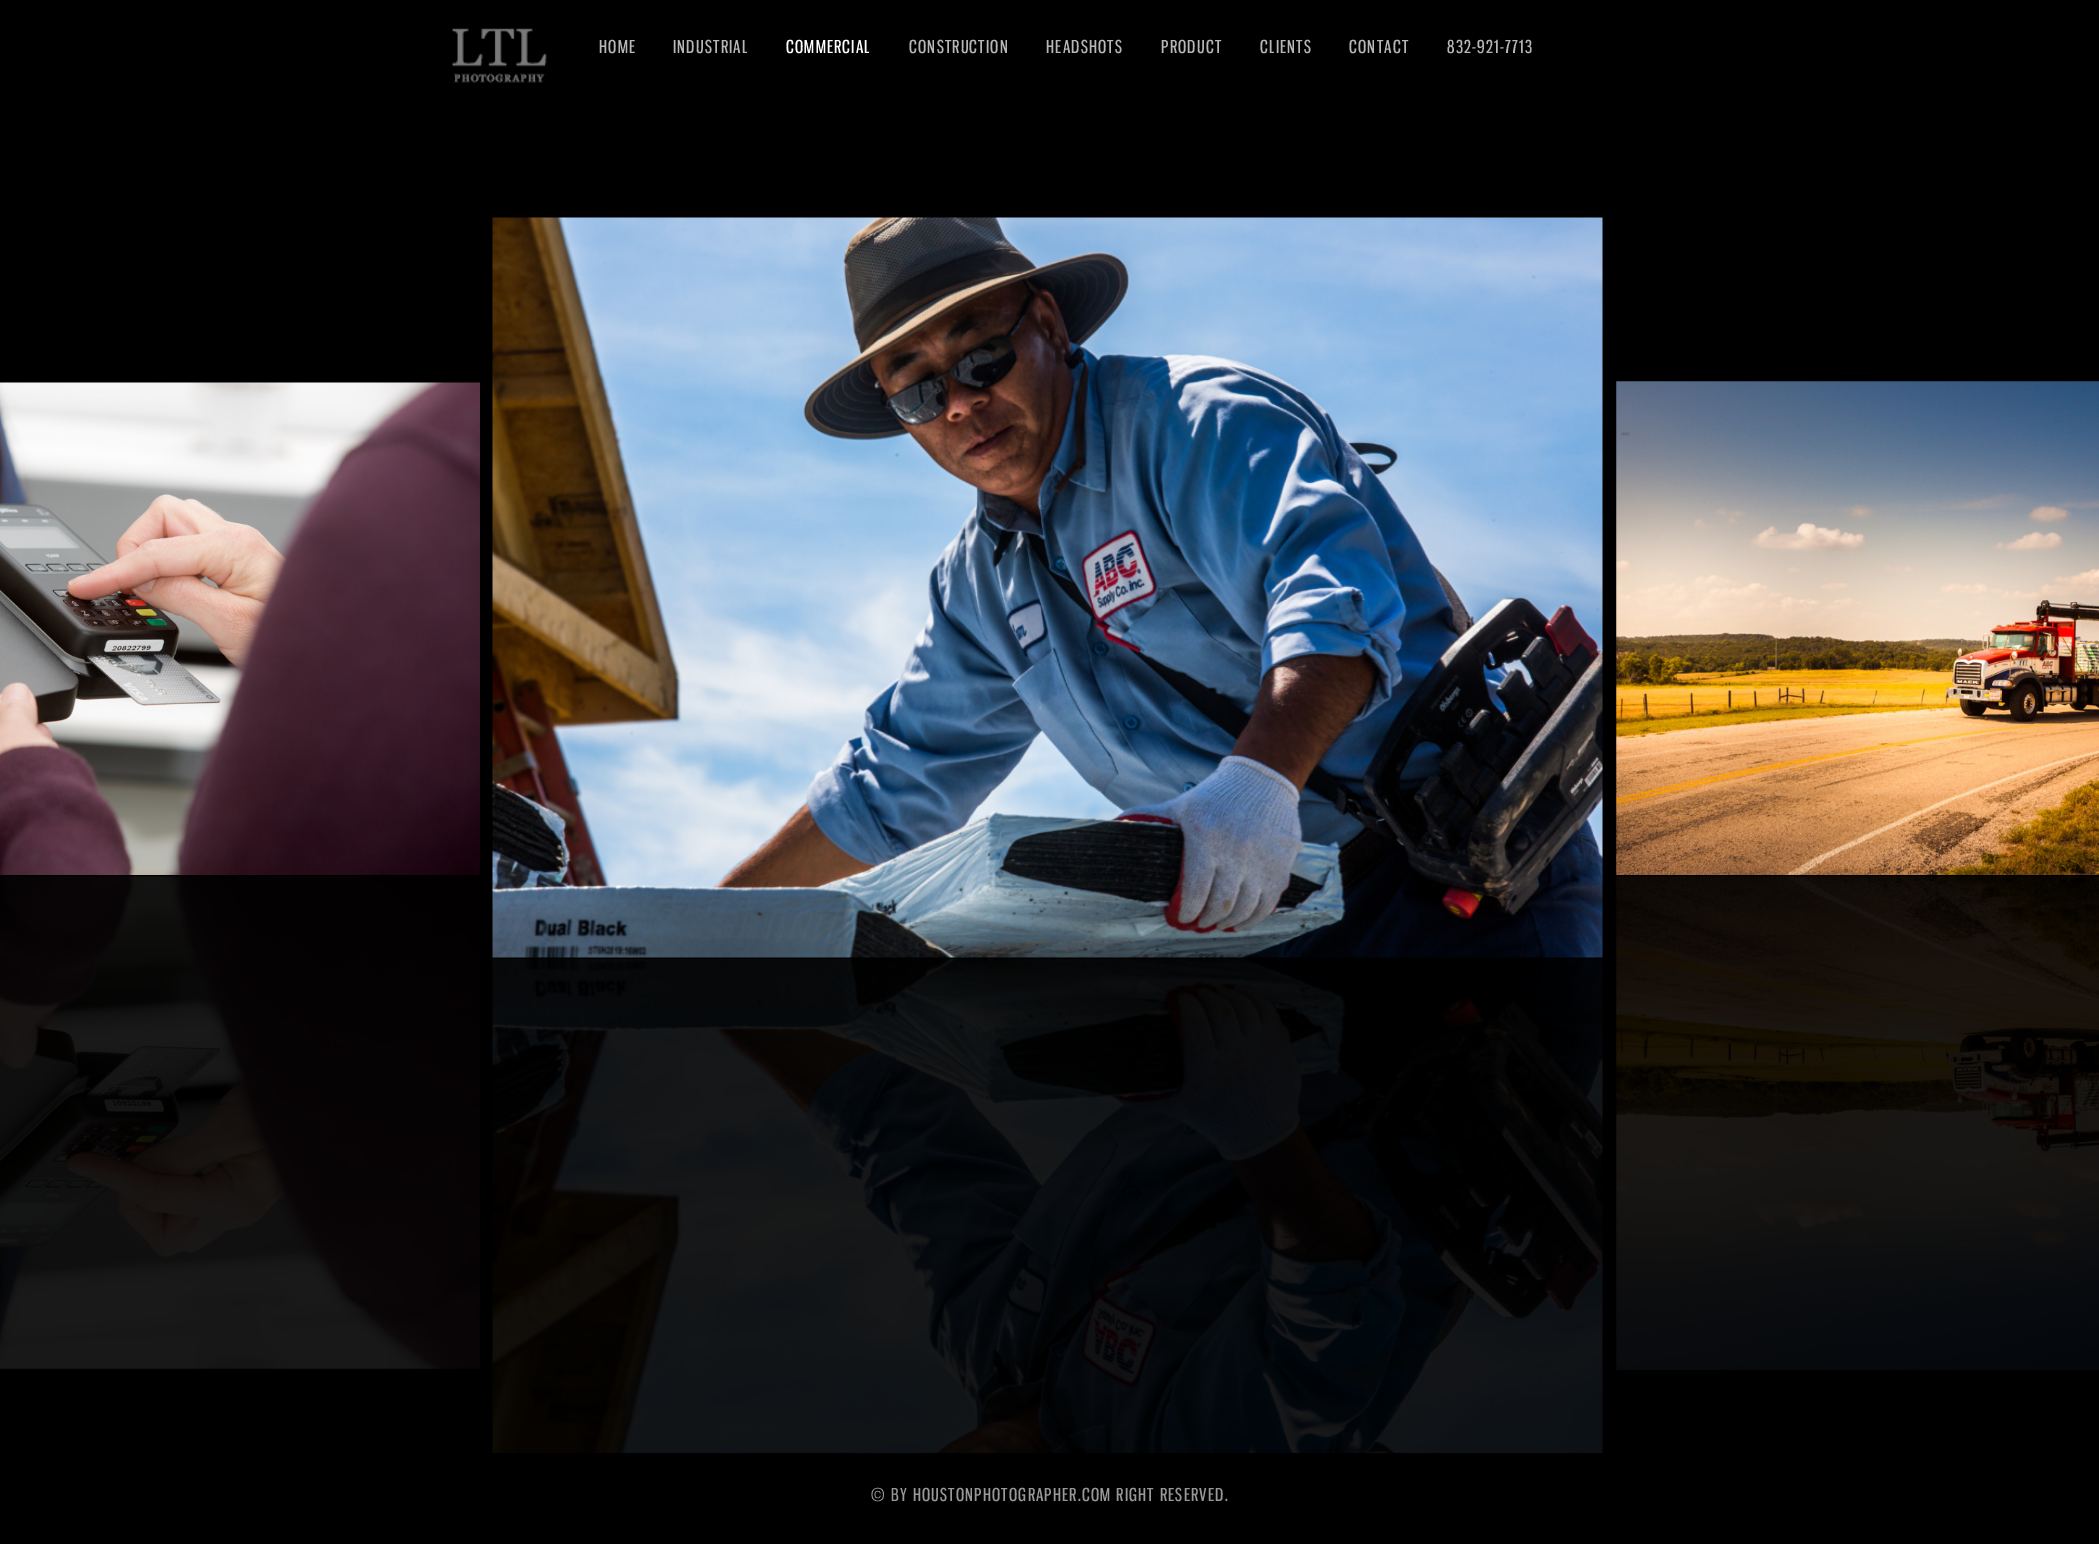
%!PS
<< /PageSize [2099 1544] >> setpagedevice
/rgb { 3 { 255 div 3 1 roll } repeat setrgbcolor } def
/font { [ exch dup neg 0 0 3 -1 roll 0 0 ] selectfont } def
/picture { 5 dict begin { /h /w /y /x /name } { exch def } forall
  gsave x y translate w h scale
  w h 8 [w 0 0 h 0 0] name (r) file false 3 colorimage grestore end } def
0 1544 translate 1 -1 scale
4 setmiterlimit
0 0 0 rgb
0 0 2099 1544 rectfill
(img_01.rgb) 452 28 95 55 picture
(img_02.rgb) 0 382 480 493 picture
(img_03.rgb) 492 217 1111 741 picture
(img_04.rgb) 1616 381 483 494 picture
(img_05.rgb) 0 876 480 493 picture
(img_06.rgb) 492 959 1111 494 picture
(img_07.rgb) 1616 876 483 494 picture
/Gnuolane-Regular 17.5 font
183 183 183 rgb
599 53 moveto 1.25 0 (HOME) ashow
673 53 moveto 1.25 0 (INDUSTRIAL) ashow
255 255 255 rgb
786 53 moveto 1.25 0 (COMMERCIAL) ashow
183 183 183 rgb
909 53 moveto 1.25 0 (CONSTRUCTION) ashow
1046 53 moveto 1.25 0 (HEADSHOTS) ashow
1161 53 moveto 1.25 0 (PRODUCT) ashow
1260 53 moveto 1.25 0 (CLIENTS) ashow
1349 53 moveto 1.25 0 (CONTACT) ashow
1447 53 moveto 1.25 0 (832-921-7713) ashow
153 153 153 rgb
871 1501 moveto 1.25 0 (© BY HOUSTONPHOTOGRAPHER.COM RIGHT RESERVED.) ashow
showpage
